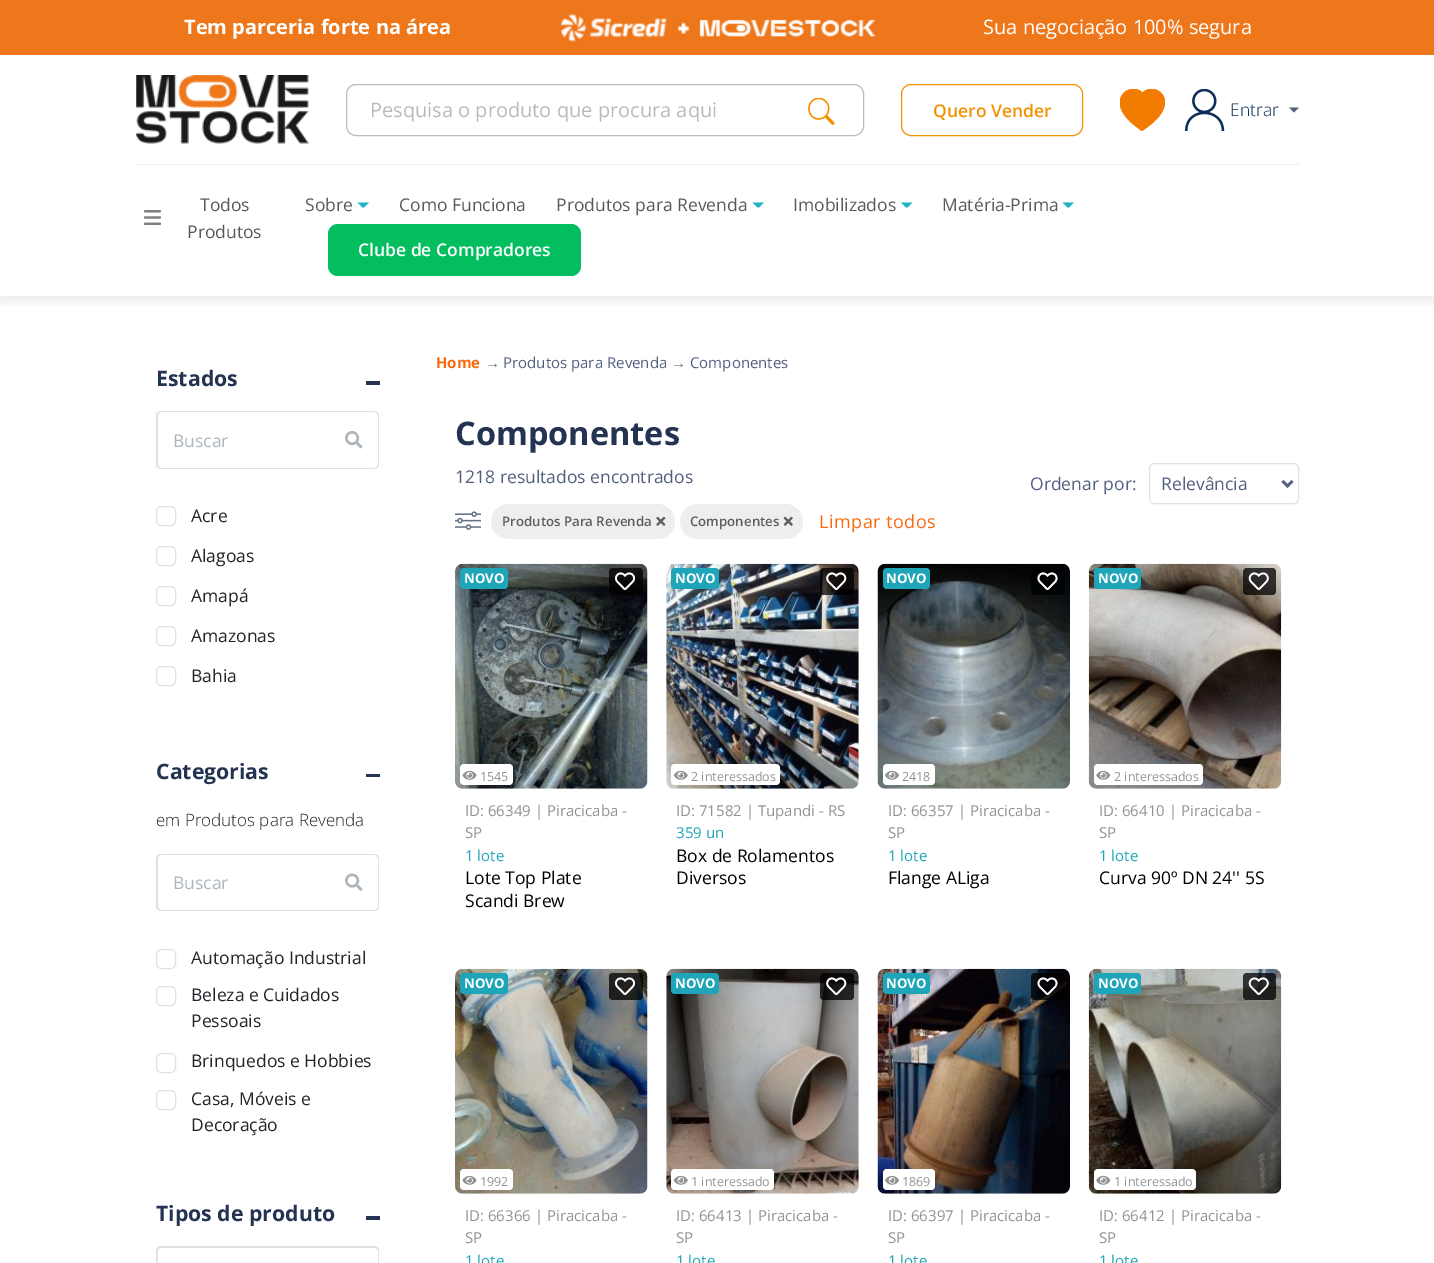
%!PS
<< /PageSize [1434 1263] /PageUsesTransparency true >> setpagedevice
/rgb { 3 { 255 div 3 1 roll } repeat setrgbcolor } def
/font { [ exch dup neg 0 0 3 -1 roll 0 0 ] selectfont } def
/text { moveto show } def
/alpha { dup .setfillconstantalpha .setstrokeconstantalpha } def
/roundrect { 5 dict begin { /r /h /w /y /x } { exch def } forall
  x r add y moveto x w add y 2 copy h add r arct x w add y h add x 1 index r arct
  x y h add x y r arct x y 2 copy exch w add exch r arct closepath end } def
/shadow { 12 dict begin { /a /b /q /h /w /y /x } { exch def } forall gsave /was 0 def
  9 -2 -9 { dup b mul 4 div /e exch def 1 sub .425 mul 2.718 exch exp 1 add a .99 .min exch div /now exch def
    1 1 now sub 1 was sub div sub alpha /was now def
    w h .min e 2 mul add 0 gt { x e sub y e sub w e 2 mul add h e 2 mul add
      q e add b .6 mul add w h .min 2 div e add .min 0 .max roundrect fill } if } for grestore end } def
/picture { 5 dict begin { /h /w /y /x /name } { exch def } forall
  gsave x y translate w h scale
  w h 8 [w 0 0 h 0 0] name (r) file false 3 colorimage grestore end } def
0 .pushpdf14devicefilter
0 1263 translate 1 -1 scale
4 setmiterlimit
255 255 255 rgb
0 0 1434 1263 rectfill
gsave
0 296 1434 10 rectclip
0 0 0 rgb
0 5 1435 296 0 7 0.08 shadow
grestore
238 119 27 rgb
0 0 1434 55 rectfill
(img_01.rgb) 561 13 315 29 picture
(img_02.rgb) 136 75 173 69 picture
187 186 186 rgb
346.5 84.5 517 51 9.5 roundrect stroke
(img_03.rgb) 808 98 27 27 picture
243 146 0 rgb
901.5 84.5 181 51 9.5 roundrect stroke
gsave
1120 89 45 42 rectclip
242 124 0 rgb
1142 131 moveto 44 -28 14 -51 1 -39 rcurveto -1 0 rlineto -13 -12 -43 11 0 39 rcurveto closepath fill
grestore
(img_04.rgb) 1185 89 40 42 picture
82 95 127 rgb
1289 107.5 moveto 10 0 rlineto -5 5 rlineto closepath fill
237 237 244 rgb
136 164 1163 1 rectfill
(img_05.rgb) 144 210 17 15 picture
33 178 196 rgb
357.5 202.5 moveto 11.5 0 rlineto -5 5 rlineto -1.5 0 rlineto closepath fill
752.5 202.5 moveto 11.5 0 rlineto -5 5 rlineto -1.5 0 rlineto closepath fill
901 202.5 moveto 11.5 0 rlineto -5 5 rlineto -1.5 0 rlineto closepath fill
1062.5 202.5 moveto 11.5 0 rlineto -5 5 rlineto -1.5 0 rlineto closepath fill
2 190 94 rgb
328 224 253 52 10 roundrect fill
36 51 82 rgb
366 381 14 4 rectfill
222 226 230 rgb
330 411 moveto 44 0 rlineto 3 0 5 2 5 5 rcurveto 0 48 rlineto 0 3 -2 5 -5 5 rcurveto -44 0 rlineto closepath 330 412 moveto 44 0 rlineto 2 0 4 2 4 4 rcurveto 0 48 rlineto 0 2 -2 4 -4 4 rcurveto -44 0 rlineto closepath eofill
161 411 moveto 170 0 rlineto 0 58 rlineto -170 0 rlineto -3 0 -5 -2 -5 -5 rcurveto 0 -48 rlineto 0 -3 2 -5 5 -5 rcurveto closepath 161 412 moveto 170 0 rlineto 0 56 rlineto -170 0 rlineto -2 0 -3 -2 -3 -4 rcurveto 0 -48 rlineto 0 -2 1 -4 3 -4 rcurveto closepath eofill
(img_06.rgb) 345 431 18 18 picture
156.5 506.5 19 19 4.5 roundrect stroke
156.5 546.5 19 19 4.5 roundrect stroke
156.5 586.5 19 19 4.5 roundrect stroke
156.5 626.5 19 19 4.5 roundrect stroke
156.5 666.5 19 19 4.5 roundrect stroke
36 51 82 rgb
366 774 14 3 rectfill
222 226 230 rgb
330 854 moveto 44 0 rlineto 3 0 5 2 5 5 rcurveto 0 47 rlineto 0 3 -2 5 -5 5 rcurveto -44 0 rlineto closepath 330 855 moveto 44 0 rlineto 2 0 4 2 4 4 rcurveto 0 47 rlineto 0 2 -2 4 -4 4 rcurveto -44 0 rlineto closepath eofill
161 854 moveto 170 0 rlineto 0 57 rlineto -170 0 rlineto -3 0 -5 -2 -5 -5 rcurveto 0 -47 rlineto 0 -3 2 -5 5 -5 rcurveto closepath 161 855 moveto 170 0 rlineto 0 55 rlineto -170 0 rlineto -2 0 -3 -2 -3 -4 rcurveto 0 -47 rlineto 0 -2 1 -4 3 -4 rcurveto closepath eofill
(img_07.rgb) 345 873 18 18 picture
156.5 949.5 19 19 4.5 roundrect stroke
156.5 986.5 19 19 4.5 roundrect stroke
156.5 1053.5 19 19 4.5 roundrect stroke
156.5 1090.5 19 19 4.5 roundrect stroke
36 51 82 rgb
366 1216 14 4 rectfill
222 226 230 rgb
330 1246 moveto 44 0 rlineto 3 0 5 2 5 5 rcurveto 0 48 rlineto 0 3 -2 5 -5 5 rcurveto -44 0 rlineto closepath 330 1248 moveto 44 0 rlineto 2 0 4 1 4 3 rcurveto 0 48 rlineto 0 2 -2 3 -4 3 rcurveto -44 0 rlineto closepath eofill
161 1246 moveto 170 0 rlineto 0 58 rlineto -170 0 rlineto -3 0 -5 -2 -5 -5 rcurveto 0 -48 rlineto 0 -3 2 -5 5 -5 rcurveto closepath 161 1248 moveto 170 0 rlineto 0 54 rlineto -170 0 rlineto -2 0 -3 -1 -3 -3 rcurveto 0 -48 rlineto 0 -2 1 -3 3 -3 rcurveto closepath eofill
1149.5 463.5 149 40 4.5 roundrect stroke
82 95 127 rgb
2.5 setlinewidth
1282.5 481 moveto 5 5 rlineto 5 -5 rlineto stroke
(img_08.rgb) 455 511 26 19 picture
238 238 238 rgb
491 504 184 35 17.5 roundrect fill
(img_09.rgb) 656 516 10 10 picture
680 504 123 35 17.5 roundrect fill
(img_10.rgb) 783 516 10 10 picture
(img_11.rgb) 455 563 193 226 picture
31 165 184 rgb
460 568 48 21 4 roundrect fill
0.5 alpha
0 0 0 rgb
609 568 34 27 4 roundrect fill
1 alpha
(img_12.rgb) 615 572 20 18 picture
255 255 255 rgb
460 764 53 21 4 roundrect fill
(img_13.rgb) 462 770 15 10 picture
0.5 alpha
0 0 0 rgb
609 568 34 27 4 roundrect fill
1 alpha
(img_14.rgb) 615 572 20 18 picture
(img_15.rgb) 666 563 193 226 picture
31 165 184 rgb
671 568 48 21 4 roundrect fill
0.5 alpha
0 0 0 rgb
820 568 34 27 4 roundrect fill
1 alpha
(img_16.rgb) 826 572 21 18 picture
255 255 255 rgb
671 764 109 21 4 roundrect fill
(img_17.rgb) 673 770 15 10 picture
0.5 alpha
0 0 0 rgb
820 568 34 27 4 roundrect fill
1 alpha
(img_18.rgb) 826 572 21 18 picture
(img_19.rgb) 877 563 193 226 picture
31 165 184 rgb
883 568 47 21 4 roundrect fill
0.5 alpha
0 0 0 rgb
1031 568 34 27 4 roundrect fill
1 alpha
(img_20.rgb) 1037 572 21 18 picture
255 255 255 rgb
883 764 52 21 4 roundrect fill
(img_21.rgb) 885 770 14 10 picture
0.5 alpha
0 0 0 rgb
1031 568 34 27 4 roundrect fill
1 alpha
(img_22.rgb) 1037 572 21 18 picture
(img_23.rgb) 1088 563 194 226 picture
31 165 184 rgb
1094 568 47 21 4 roundrect fill
0.5 alpha
0 0 0 rgb
1243 568 33 27 4 roundrect fill
1 alpha
(img_24.rgb) 1248 572 21 18 picture
255 255 255 rgb
1094 764 109 21 4 roundrect fill
(img_25.rgb) 1096 770 15 10 picture
0.5 alpha
0 0 0 rgb
1243 568 33 27 4 roundrect fill
1 alpha
(img_26.rgb) 1248 572 21 18 picture
(img_27.rgb) 455 968 193 226 picture
31 165 184 rgb
460 973 48 21 4 roundrect fill
0.5 alpha
0 0 0 rgb
609 973 34 27 4 roundrect fill
1 alpha
(img_28.rgb) 615 977 20 18 picture
255 255 255 rgb
460 1169 53 21 4 roundrect fill
(img_13.rgb) 462 1175 15 10 picture
0.5 alpha
0 0 0 rgb
609 973 34 27 4 roundrect fill
1 alpha
(img_29.rgb) 615 977 20 18 picture
(img_30.rgb) 666 968 193 226 picture
31 165 184 rgb
671 973 48 21 4 roundrect fill
0.5 alpha
0 0 0 rgb
820 973 34 27 4 roundrect fill
1 alpha
(img_31.rgb) 826 977 21 18 picture
255 255 255 rgb
671 1169 103 21 4 roundrect fill
(img_17.rgb) 673 1175 15 10 picture
0.5 alpha
0 0 0 rgb
820 973 34 27 4 roundrect fill
1 alpha
(img_32.rgb) 826 977 21 18 picture
(img_33.rgb) 877 968 193 226 picture
31 165 184 rgb
883 973 47 21 4 roundrect fill
0.5 alpha
0 0 0 rgb
1031 973 34 27 4 roundrect fill
1 alpha
(img_34.rgb) 1037 977 21 18 picture
255 255 255 rgb
883 1169 52 21 4 roundrect fill
(img_21.rgb) 885 1175 14 10 picture
0.5 alpha
0 0 0 rgb
1031 973 34 27 4 roundrect fill
1 alpha
(img_35.rgb) 1037 977 21 18 picture
(img_36.rgb) 1088 968 194 226 picture
31 165 184 rgb
1094 973 47 21 4 roundrect fill
0.5 alpha
0 0 0 rgb
1243 973 33 27 4 roundrect fill
1 alpha
(img_37.rgb) 1248 977 21 18 picture
255 255 255 rgb
1094 1169 102 21 4 roundrect fill
(img_25.rgb) 1096 1175 15 10 picture
0.5 alpha
0 0 0 rgb
1243 973 33 27 4 roundrect fill
1 alpha
(img_38.rgb) 1248 977 21 18 picture
/OpenSans-Bold 20 font
255 255 255 rgb
(Tem parceria forte na área) 184 34 text
/OpenSans-Regular 20 font
(Sua negociação 100% segura) 983 34 text
187 186 186 rgb
(Pesquisa o produto que procura aqui) 370 117 text
/OpenSans-SemiBold 17.5 font
243 146 0 rgb
(Quero Vender) 933 117 text
/OpenSans-Light 17.5 font
12 45 90 rgb
(Entrar) 1230 116 text
/OpenSans-Regular 17.5 font
89 89 89 rgb
(Todos) 200 211 text
(Produtos) 187 238 text
(Sobre) 305 211 text
(Como Funciona) 399 211 text
(Produtos para Revenda) 556 211 text
(Imobilizados) 793 211 text
(Matéria-Prima) 942 211 text
/OpenSans-SemiBold 17.5 font
255 255 255 rgb
(Clube de Compradores) 358 256 text
/OpenSans-Bold 21.25 font
36 51 82 rgb
(Estados) 156 386 text
/OpenSans-Regular 17.5 font
173 181 189 rgb
(Buscar) 173 447 text
33 37 41 rgb
(Acre) 191 522 text
(Alagoas) 191 562 text
(Amapá) 191 602 text
(Amazonas) 191 642 text
(Bahia) 191 682 text
/OpenSans-Bold 21.25 font
36 51 82 rgb
(Categorias) 156 779 text
/OpenSans-Light 17 font
33 37 41 rgb
(em Produtos para Revenda) 156 826 text
/OpenSans-Regular 17.5 font
173 181 189 rgb
(Buscar) 173 889 text
33 37 41 rgb
(Automação Industrial) 191 964 text
(Beleza e Cuidados) 191 1001 text
(Pessoais) 191 1027 text
(Brinquedos e Hobbies) 191 1067 text
(Casa, Móveis e) 191 1105 text
(Decoração) 191 1131 text
/OpenSans-Bold 21.25 font
36 51 82 rgb
(Tipos de produto) 156 1221 text
/OpenSans-Bold 15 font
249 105 14 rgb
(Home) 436 368 text
/LiberationSans-Regular 15 font
82 95 127 rgb
(→) 485 368 text
/OpenSans-Regular 15 font
(Produtos para Revenda) 503 368 text
/LiberationSans-Regular 15 font
(→) 671 368 text
/OpenSans-Regular 15 font
(Componentes) 690 368 text
/OpenSans-Bold 32.5 font
36 51 82 rgb
(Componentes) 455 445 text
/OpenSans-Regular 17.5 font
82 95 127 rgb
(1218 resultados encontrados) 455 483 text
(Ordenar por:) 1030 490 text
(Relevância) 1161 490 text
/OpenSans-SemiBold 13.25 font
95 95 95 rgb
(Produtos Para Revenda) 502 526 text
(Componentes) 690 526 text
/OpenSans-Regular 18 font
249 105 14 rgb
819 528 moveto 0.5 0 (Limpar todos) ashow
/OpenSans-Bold 13.25 font
255 255 255 rgb
(NOVO) 464 583 text
/OpenSans-Regular 12.5 font
146 146 146 rgb
(1545) 480 781 text
/OpenSans-Regular 15 font
(ID: 66349 | Piracicaba -) 465 816 text
(SP) 465 838 text
31 165 184 rgb
(1 lote) 465 861 text
/OpenSans-Regular 17.5 font
0 0 0 rgb
(Lote Top Plate) 465 884 text
(Scandi Brew) 465 907 text
/OpenSans-Bold 13.25 font
255 255 255 rgb
(NOVO) 675 583 text
/OpenSans-Regular 12.5 font
146 146 146 rgb
(2 interessados) 691 781 text
/OpenSans-Regular 15 font
(ID: 71582 | Tupandi - RS) 676 816 text
31 165 184 rgb
(359 un) 676 838 text
/OpenSans-Regular 17.5 font
0 0 0 rgb
(Box de Rolamentos) 676 862 text
(Diversos) 676 884 text
/OpenSans-Bold 13.25 font
255 255 255 rgb
(NOVO) 886 583 text
/OpenSans-Regular 12.5 font
146 146 146 rgb
(2418) 902 781 text
/OpenSans-Regular 15 font
(ID: 66357 | Piracicaba -) 888 816 text
(SP) 888 838 text
31 165 184 rgb
(1 lote) 888 861 text
/OpenSans-Regular 17.5 font
0 0 0 rgb
(Flange ALiga) 888 884 text
/OpenSans-Bold 13.25 font
255 255 255 rgb
(NOVO) 1098 583 text
/OpenSans-Regular 12.5 font
146 146 146 rgb
(2 interessados) 1114 781 text
/OpenSans-Regular 15 font
(ID: 66410 | Piracicaba -) 1099 816 text
(SP) 1099 838 text
31 165 184 rgb
(1 lote) 1099 861 text
/OpenSans-Regular 17.5 font
0 0 0 rgb
(Curva 90º DN 24'' 5S) 1099 884 text
/OpenSans-Bold 13.25 font
255 255 255 rgb
(NOVO) 464 988 text
/OpenSans-Regular 12.5 font
146 146 146 rgb
(1992) 480 1186 text
/OpenSans-Regular 15 font
(ID: 66366 | Piracicaba -) 465 1221 text
(SP) 465 1243 text
31 165 184 rgb
(1 lote) 465 1266 text
/OpenSans-Bold 13.25 font
255 255 255 rgb
(NOVO) 675 988 text
/OpenSans-Regular 12.5 font
146 146 146 rgb
(1 interessado) 691 1186 text
/OpenSans-Regular 15 font
(ID: 66413 | Piracicaba -) 676 1221 text
(SP) 676 1243 text
31 165 184 rgb
(1 lote) 676 1266 text
/OpenSans-Bold 13.25 font
255 255 255 rgb
(NOVO) 886 988 text
/OpenSans-Regular 12.5 font
146 146 146 rgb
(1869) 902 1186 text
/OpenSans-Regular 15 font
(ID: 66397 | Piracicaba -) 888 1221 text
(SP) 888 1243 text
31 165 184 rgb
(1 lote) 888 1266 text
/OpenSans-Bold 13.25 font
255 255 255 rgb
(NOVO) 1098 988 text
/OpenSans-Regular 12.5 font
146 146 146 rgb
(1 interessado) 1114 1186 text
/OpenSans-Regular 15 font
(ID: 66412 | Piracicaba -) 1099 1221 text
(SP) 1099 1243 text
31 165 184 rgb
(1 lote) 1099 1266 text
.poppdf14devicefilter showpage
